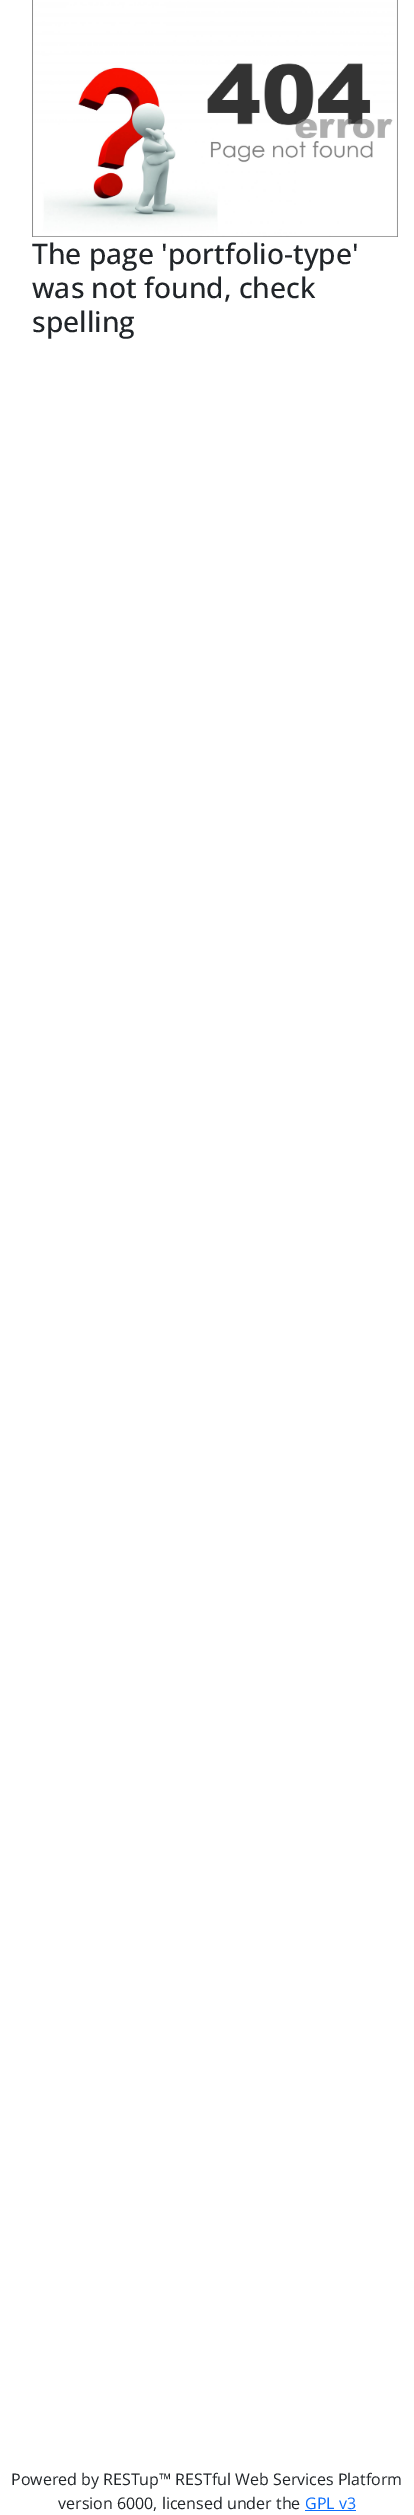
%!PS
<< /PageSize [414 2515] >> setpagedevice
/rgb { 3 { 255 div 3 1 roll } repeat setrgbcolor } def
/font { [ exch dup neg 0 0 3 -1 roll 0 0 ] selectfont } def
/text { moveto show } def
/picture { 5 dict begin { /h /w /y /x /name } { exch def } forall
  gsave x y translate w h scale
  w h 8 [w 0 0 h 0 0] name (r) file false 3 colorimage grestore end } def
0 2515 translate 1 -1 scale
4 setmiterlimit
255 255 255 rgb
0 0 414 2515 rectfill
(img_01.rgb) 32 0 366 237 picture
13 110 253 rgb
305 2510 51 1 rectfill
/OpenSans-Medium 28.25 font
33 37 41 rgb
(The page 'portfolio-type') 32 264 text
(was not found, check) 32 298 text
(spelling) 32 332 text
/OpenSans-Regular 16 font
(Powered by RESTup™ RESTful Web Services Platform) 11 2485 text
(version 6000, licensed under the) 58 2509 text
13 110 253 rgb
(GPL v3) 305 2509 text
showpage
